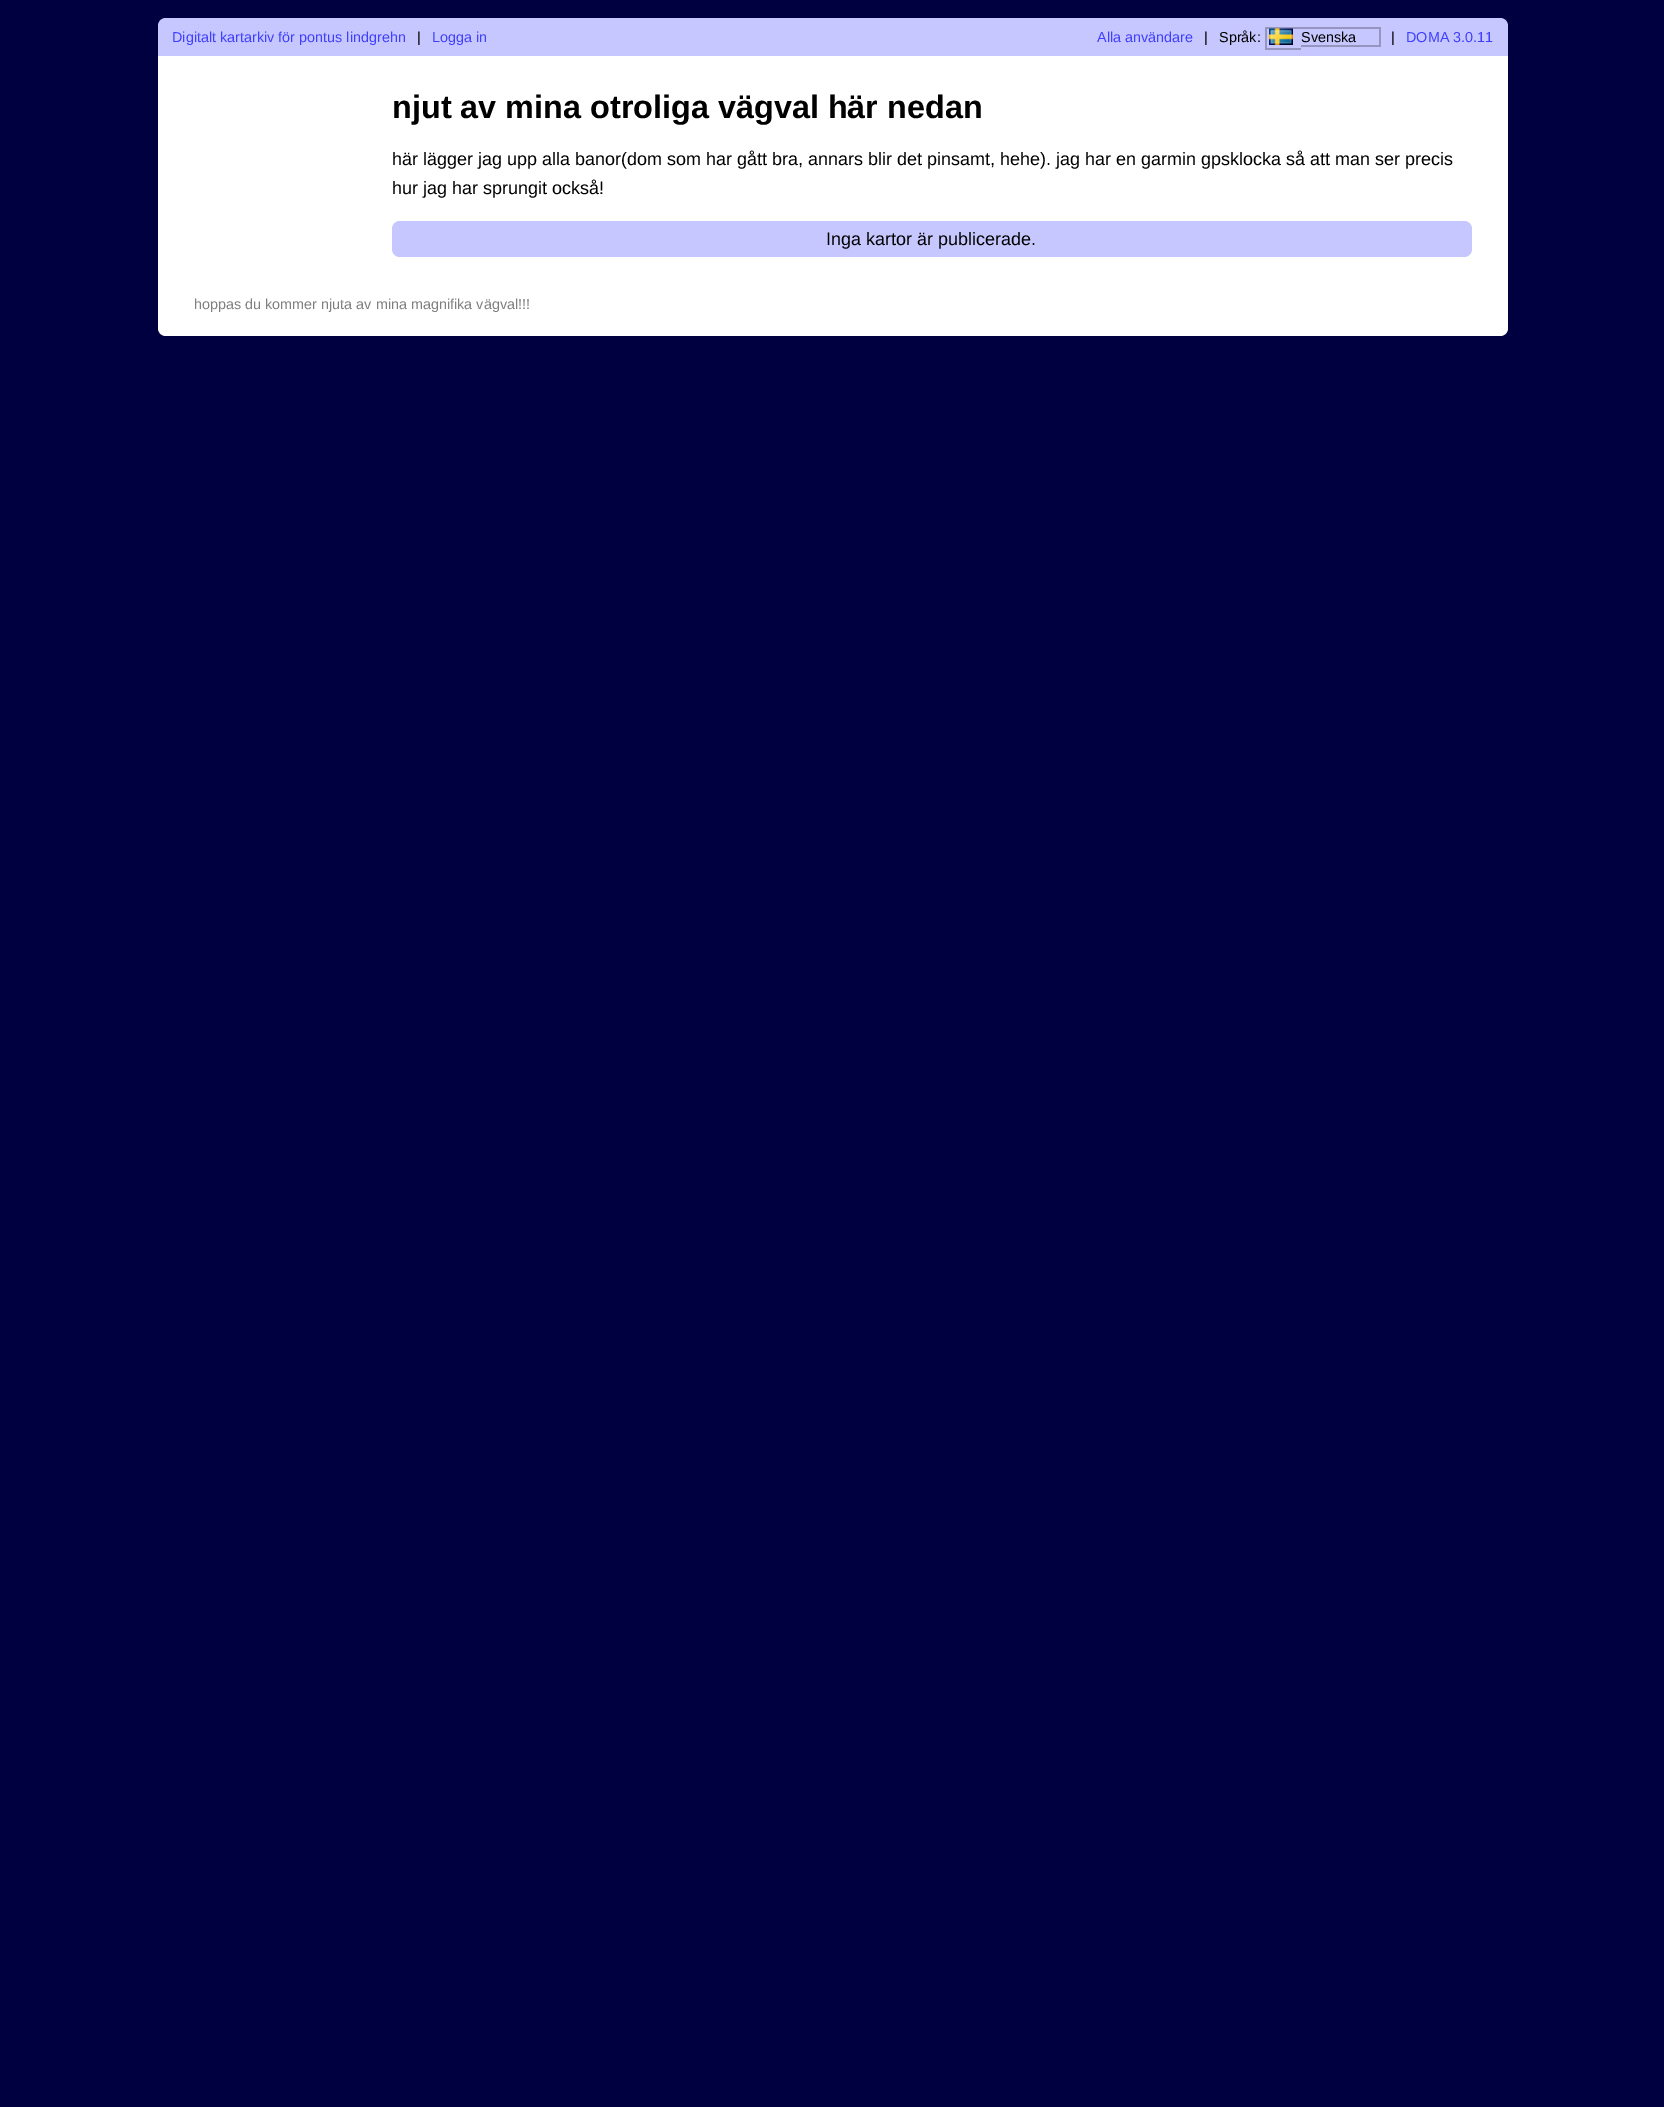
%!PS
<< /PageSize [1664 2107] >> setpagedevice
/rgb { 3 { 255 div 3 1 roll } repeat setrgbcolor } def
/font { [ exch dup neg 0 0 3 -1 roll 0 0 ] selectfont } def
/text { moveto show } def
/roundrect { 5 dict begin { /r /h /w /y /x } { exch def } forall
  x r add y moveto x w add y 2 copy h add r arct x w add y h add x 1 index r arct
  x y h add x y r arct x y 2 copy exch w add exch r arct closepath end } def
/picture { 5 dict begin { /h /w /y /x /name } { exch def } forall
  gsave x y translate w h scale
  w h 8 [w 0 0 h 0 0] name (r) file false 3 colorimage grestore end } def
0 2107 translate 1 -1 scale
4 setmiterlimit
0 0 64 rgb
0 0 1664 2107 rectfill
199 199 255 rgb
166 18 moveto 1334 0 rlineto 4.5 0 8 3.5 8 8 rcurveto 0 30 rlineto -1350 0 rlineto 0 -30 rlineto 0 -4.5 3.5 -8 8 -8 rcurveto closepath fill
149 149 191 rgb
1265 27 115 2 rectfill
(img_01.rgb) 1269 28 24 17 picture
1265 48 36 2 rectfill
1265 27 2 23 rectfill
1379 27 2 20 rectfill
1301 45 79 2 rectfill
255 255 255 rgb
158 56 moveto 1350 0 rlineto 0 272 rlineto 0 4.5 -3.5 8 -8 8 rcurveto -1334 0 rlineto -4.5 0 -8 -3.5 -8 -8 rcurveto closepath fill
199 199 255 rgb
392 221 1080 36 8 roundrect fill
/LiberationSans-Regular 14.4 font
63 63 255 rgb
(Digitalt kartarkiv för pontus lindgrehn) 172 42 text
0 0 0 rgb
(|) 417 42 text
63 63 255 rgb
(Logga in) 432 42 text
(Alla användare) 1097 42 text
0 0 0 rgb
(|) 1204 42 text
(Språk:) 1219 42 text
(Svenska) 1301 42 text
(|) 1391 42 text
63 63 255 rgb
(DOMA 3.0.11) 1406 42 text
/LiberationSans-Bold 32.4 font
0 0 0 rgb
(njut av mina otroliga vägval här nedan) 392 118 text
/LiberationSans-Regular 18 font
(här lägger jag upp alla banor\(dom som har gått bra, annars blir det pinsamt, hehe\). jag har en garmin gpsklocka så att man ser precis) 392 165 text
(hur jag har sprungit också!) 392 194 text
(Inga kartor är publicerade.) 826 245 text
/LiberationSans-Regular 14.4 font
127 127 127 rgb
(hoppas du kommer njuta av mina magnifika vägval!!!) 194 309 text
showpage
